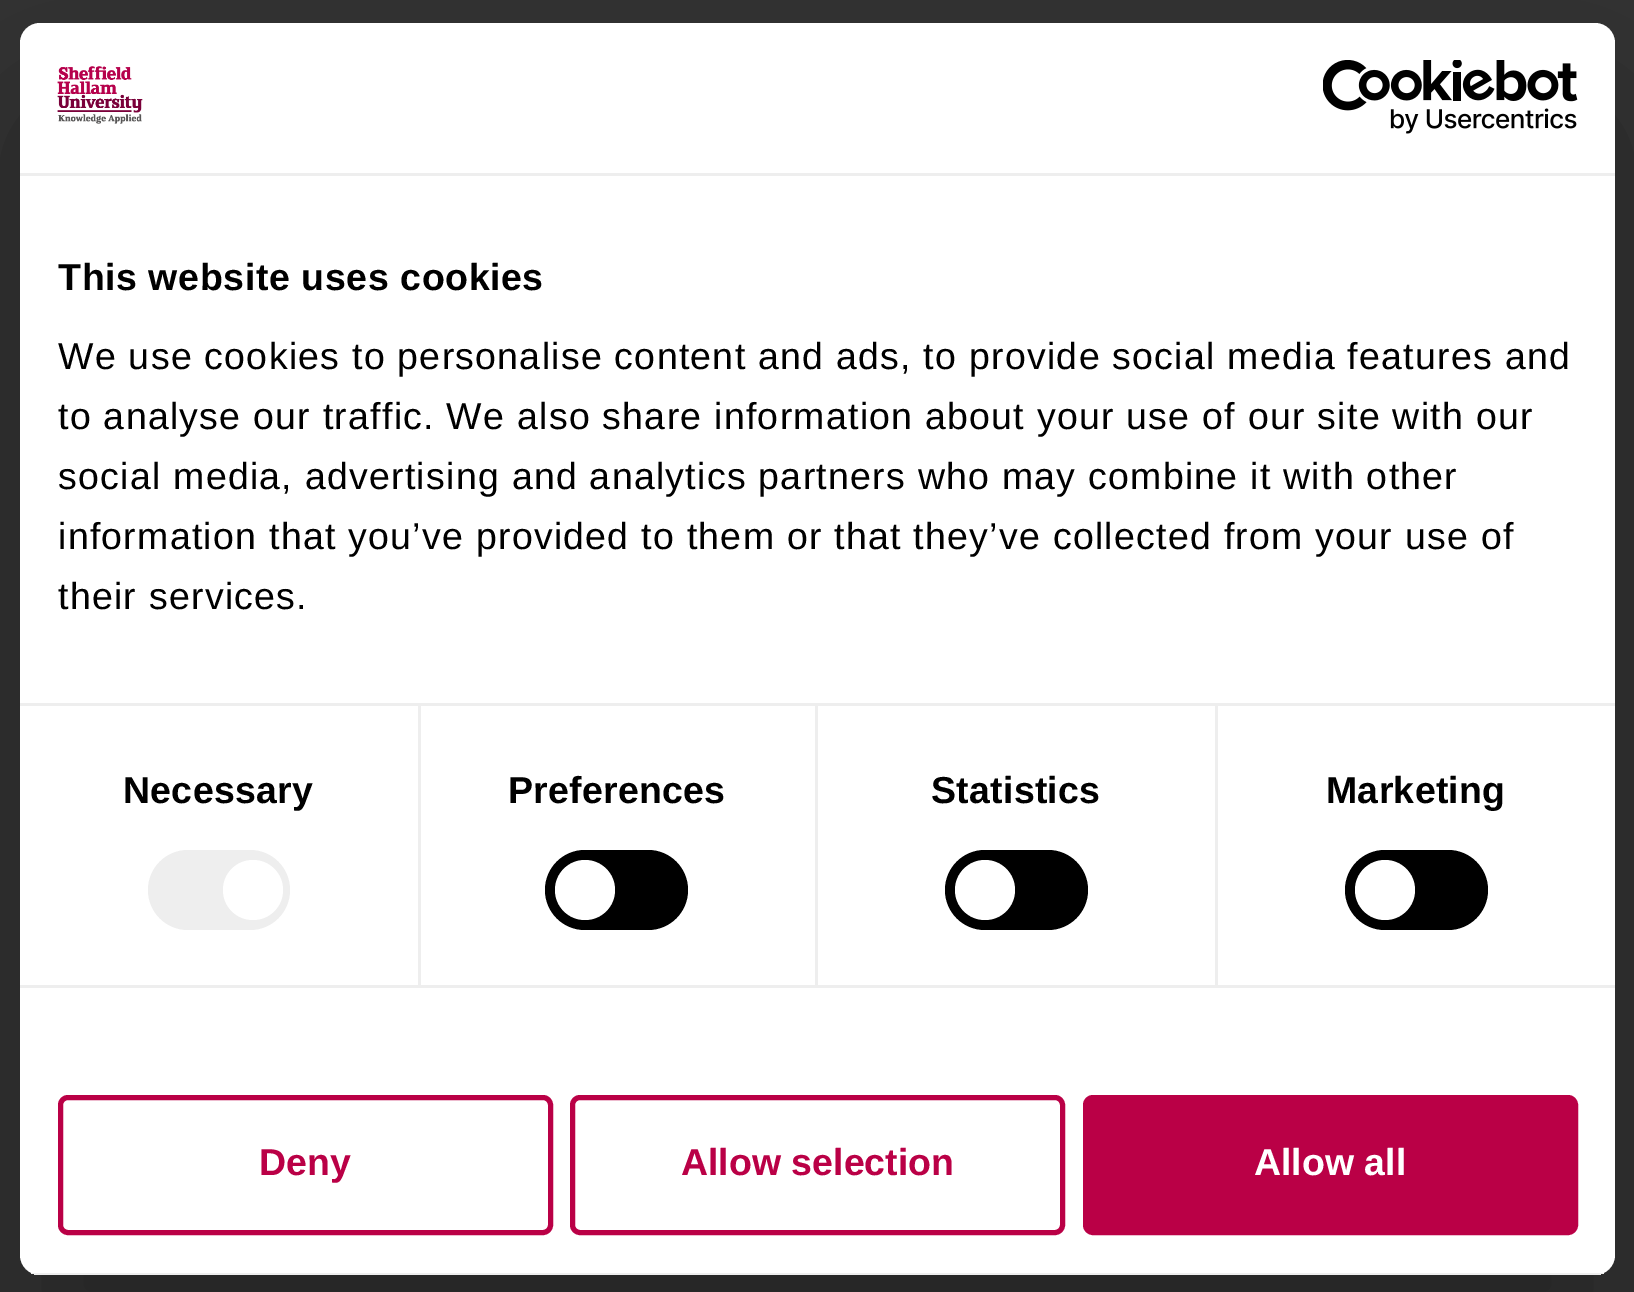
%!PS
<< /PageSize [1634 1292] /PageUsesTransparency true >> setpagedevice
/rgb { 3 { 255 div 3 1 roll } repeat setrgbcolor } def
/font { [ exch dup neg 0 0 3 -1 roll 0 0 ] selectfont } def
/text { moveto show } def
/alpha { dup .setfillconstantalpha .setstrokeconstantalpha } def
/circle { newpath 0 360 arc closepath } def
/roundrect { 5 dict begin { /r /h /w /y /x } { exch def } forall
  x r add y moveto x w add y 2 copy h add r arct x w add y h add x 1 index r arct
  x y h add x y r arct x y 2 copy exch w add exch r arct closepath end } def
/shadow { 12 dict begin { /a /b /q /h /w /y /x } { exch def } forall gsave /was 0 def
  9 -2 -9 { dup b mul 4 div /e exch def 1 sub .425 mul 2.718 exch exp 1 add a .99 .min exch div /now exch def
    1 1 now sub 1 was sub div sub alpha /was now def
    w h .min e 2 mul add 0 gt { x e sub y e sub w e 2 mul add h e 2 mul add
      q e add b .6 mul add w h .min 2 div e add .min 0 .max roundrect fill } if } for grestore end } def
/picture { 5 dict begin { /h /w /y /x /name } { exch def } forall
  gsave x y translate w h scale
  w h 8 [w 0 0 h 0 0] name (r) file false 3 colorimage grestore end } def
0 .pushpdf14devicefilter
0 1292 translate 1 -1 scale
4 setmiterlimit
51 51 51 rgb
0 0 1634 1292 rectfill
gsave
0 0 moveto 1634 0 rlineto 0 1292 rlineto -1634 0 rlineto closepath 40 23 moveto 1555 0 rlineto 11 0 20 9 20 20 rcurveto 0 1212 rlineto 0 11 -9 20 -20 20 rcurveto -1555 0 rlineto -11 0 -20 -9 -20 -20 rcurveto 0 -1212 rlineto 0 -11 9 -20 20 -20 rcurveto closepath eoclip newpath
0 0 0 rgb
20 103 1595 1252 20 85 0.3 shadow
grestore
255 255 255 rgb
20 23 1595 1252 20 roundrect fill
238 238 238 rgb
20 173 1595 3 rectfill
(img_01.rgb) 57 66 86 58 picture
(img_02.rgb) 1323 60 255 74 picture
418 705 3 280 rectfill
815 705 3 280 rectfill
1215 705 3 280 rectfill
20 703 1595 3 rectfill
20 985 1595 3 rectfill
148 850 142 80 40 roundrect fill
255 255 255 rgb
253 890 30 circle fill
0 0 0 rgb
545 850 143 80 40 roundrect fill
255 255 255 rgb
585 890 30 circle fill
0 0 0 rgb
945 850 143 80 40 roundrect fill
255 255 255 rgb
985 890 30 circle fill
0 0 0 rgb
1345 850 143 80 40 roundrect fill
255 255 255 rgb
1385 890 30 circle fill
gsave
20 23 1595 1252 20 roundrect clip newpath
238 238 238 rgb
31 1273 1573 2 rectfill
grestore
186 0 70 rgb
5 setlinewidth
60.5 1097.5 490 135 7.5 roundrect stroke
572.5 1097.5 490 135 7.5 roundrect stroke
1085.5 1097.5 490 135 7.5 roundrect gsave fill grestore
stroke
/LiberationSans-Bold 37.5 font
0 0 0 rgb
58 290 moveto 0.6 0 (This website uses cookies) ashow
/LiberationSans-Regular 37.5 font
58 369 moveto 1.25 0 (We use cookies to personalise content and ads, to provide social media features and) ashow
58 429 moveto 1.25 0 (to analyse our traffic. We also share information about your use of our site with our) ashow
58 489 moveto 1.25 0 (social media, advertising and analytics partners who may combine it with other) ashow
58 549 moveto 1.25 0 (information that you’ve provided to them or that they’ve collected from your use of) ashow
58 609 moveto 1.25 0 (their services.) ashow
/LiberationSans-Bold 37.5 font
123 803 moveto 0.25 0 (Necessary) ashow
508 803 moveto 0.25 0 (Preferences) ashow
931 803 moveto 0.25 0 (Statistics) ashow
1326 803 moveto 0.25 0 (Marketing) ashow
186 0 70 rgb
(Deny) 259 1175 text
(Allow selection) 681 1175 text
255 255 255 rgb
(Allow all) 1254 1175 text
.poppdf14devicefilter showpage
